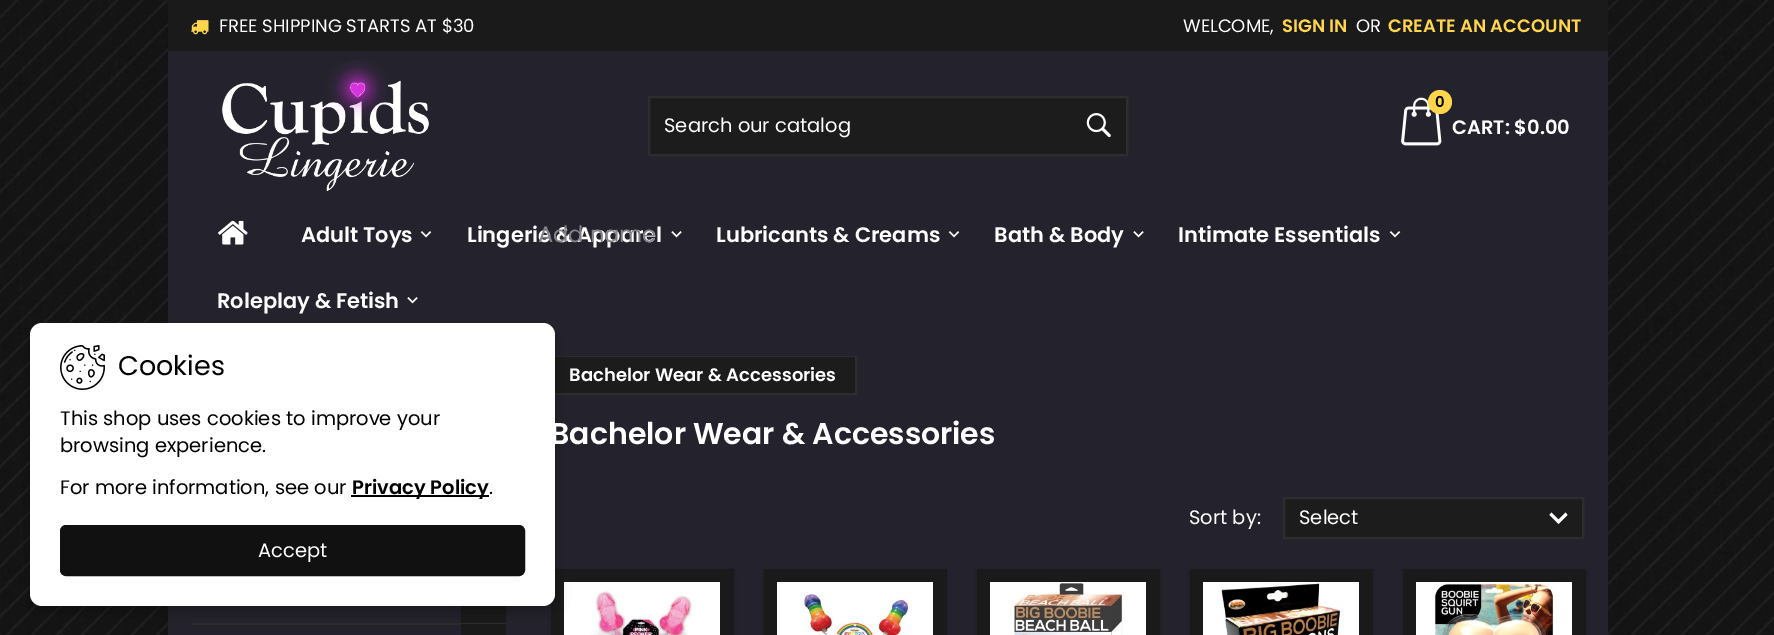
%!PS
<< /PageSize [1774 635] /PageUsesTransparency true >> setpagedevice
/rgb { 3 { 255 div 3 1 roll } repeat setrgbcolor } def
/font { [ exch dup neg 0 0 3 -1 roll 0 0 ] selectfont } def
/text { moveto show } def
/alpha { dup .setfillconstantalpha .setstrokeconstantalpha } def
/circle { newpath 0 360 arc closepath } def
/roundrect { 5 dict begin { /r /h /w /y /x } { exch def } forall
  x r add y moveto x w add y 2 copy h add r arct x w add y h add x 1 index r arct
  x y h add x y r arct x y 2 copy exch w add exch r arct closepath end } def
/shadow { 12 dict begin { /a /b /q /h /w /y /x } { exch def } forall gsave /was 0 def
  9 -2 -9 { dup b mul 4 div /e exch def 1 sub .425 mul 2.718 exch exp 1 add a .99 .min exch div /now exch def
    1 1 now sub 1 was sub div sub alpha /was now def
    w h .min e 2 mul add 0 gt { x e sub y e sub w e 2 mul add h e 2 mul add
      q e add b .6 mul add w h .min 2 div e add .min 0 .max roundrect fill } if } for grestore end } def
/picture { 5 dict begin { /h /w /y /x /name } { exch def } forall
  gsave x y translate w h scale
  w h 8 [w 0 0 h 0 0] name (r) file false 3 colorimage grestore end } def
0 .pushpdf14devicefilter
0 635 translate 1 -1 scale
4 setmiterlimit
0 0 0 rgb
0 0 1774 635 rectfill
(img_01.rgb) 0 0 1774 635 picture
36 35 45 rgb
168 51 1440 584 rectfill
26 26 26 rgb
168 0 1440 51 rectfill
(img_02.rgb) 191 20 18 15 picture
(img_03.rgb) 221 60 208 132 picture
28 28 28 rgb
649 97 moveto 478 0 rlineto 0 58 rlineto -478 0 rlineto closepath gsave fill grestore
45 45 45 rgb
2 setlinewidth
stroke
(img_04.rgb) 1086 113 25 25 picture
(img_05.rgb) 1401 97 41 49 picture
255 213 76 rgb
1440 102 12 circle fill
(img_06.rgb) 218 220 30 25 picture
(img_07.rgb) 420 231 12 7 picture
(img_08.rgb) 671 231 11 7 picture
(img_07.rgb) 948 231 12 7 picture
(img_08.rgb) 1133 231 11 7 picture
(img_07.rgb) 1389 231 12 7 picture
(img_08.rgb) 407 297 11 7 picture
45 45 45 rgb
192 357 664 37 rectstroke
28 28 28 rgb
555 357 300 36 rectfill
0 0 0 rgb
551 570 183 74 0 3 0.24 shadow
26 26 26 rgb
551 569 183 66 rectfill
(img_10.rgb) 564 582 156 53 picture
461 606 45 17 rectfill
45 45 45 rgb
191 623 315 2 rectfill
26 26 26 rgb
461 624 45 11 rectfill
0 0 0 rgb
30 329 525 283 12 7.5 0.3 shadow
255 255 255 rgb
30 323 525 283 12 roundrect fill
(img_09.rgb) 60 345 45 45 picture
0 0 0 rgb
351 495 138 2 rectfill
17 17 17 rgb
61.5 526.5 462 48 4.5 roundrect gsave fill grestore
3 setlinewidth
stroke
28 28 28 rgb
1284 498 moveto 299 0 rlineto 0 40 rlineto -299 0 rlineto closepath gsave fill grestore
45 45 45 rgb
2 setlinewidth
stroke
255 255 255 rgb
1551.5 512.5 moveto 7 7 rlineto 7 -7 rlineto 2 2.5 rlineto -9 9 rlineto -9 -9 rlineto closepath fill
0 0 0 rgb
764 570 183 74 0 3 0.24 shadow
26 26 26 rgb
764 569 183 66 rectfill
(img_11.rgb) 777 582 156 53 picture
0 0 0 rgb
977 570 183 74 0 3 0.24 shadow
26 26 26 rgb
977 569 183 66 rectfill
(img_12.rgb) 990 582 156 53 picture
0 0 0 rgb
1190 570 183 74 0 3 0.24 shadow
26 26 26 rgb
1190 569 183 66 rectfill
(img_13.rgb) 1203 582 156 53 picture
0 0 0 rgb
1403 570 183 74 0 3 0.24 shadow
26 26 26 rgb
1403 569 183 66 rectfill
(img_14.rgb) 1416 582 156 53 picture
/Poppins-Regular 18 font
255 255 255 rgb
(FREE SHIPPING STARTS AT $30) 219 32 text
(WELCOME,) 1183 32 text
/Poppins-SemiBold 18 font
255 213 76 rgb
(SIGN IN) 1282 32 text
/Poppins-Regular 18 font
255 255 255 rgb
(OR) 1356 32 text
/Poppins-SemiBold 18 font
255 213 76 rgb
(CREATE AN ACCOUNT) 1388 32 text
/Poppins-Regular 19.5 font
255 255 255 rgb
(Search our catalog) 664 132 text
/Poppins-SemiBold 15 font
0 0 0 rgb
(0) 1435 107 text
/Poppins-SemiBold 19.5 font
255 255 255 rgb
(CART: $0.00) 1452 134 text
/Poppins-SemiBold 21 font
(Adult Toys) 301 242 text
(Lingerie & Apparel) 467 242 text
(Lubricants & Creams) 716 242 text
(Bath & Body) 994 242 text
(Intimate Essentials) 1178 242 text
(Roleplay & Fetish) 217 308 text
/Poppins-Regular 22.5 font
131 130 136 rgb
(Add name) 538 242 text
/Poppins-Regular 27 font
0 0 0 rgb
(Cookies) 118 375 text
/Poppins-Regular 19.5 font
(This shop uses cookies to improve your) 60 425 text
(browsing experience.) 60 452 text
(For more information, see our) 60 494 text
/Poppins-SemiBold 19.5 font
(Privacy Policy) 352 494 text
/Poppins-Regular 19.5 font
(.) 489 494 text
255 255 255 rgb
(Accept) 258 557 text
/Poppins-SemiBold 18 font
(Bachelor Wear & Accessories) 569 381 text
/Poppins-SemiBold 30 font
(Bachelor Wear & Accessories) 550 444 text
/Poppins-Regular 19.5 font
(Sort by:) 1189 524 text
(Select) 1299 524 text
.poppdf14devicefilter showpage
